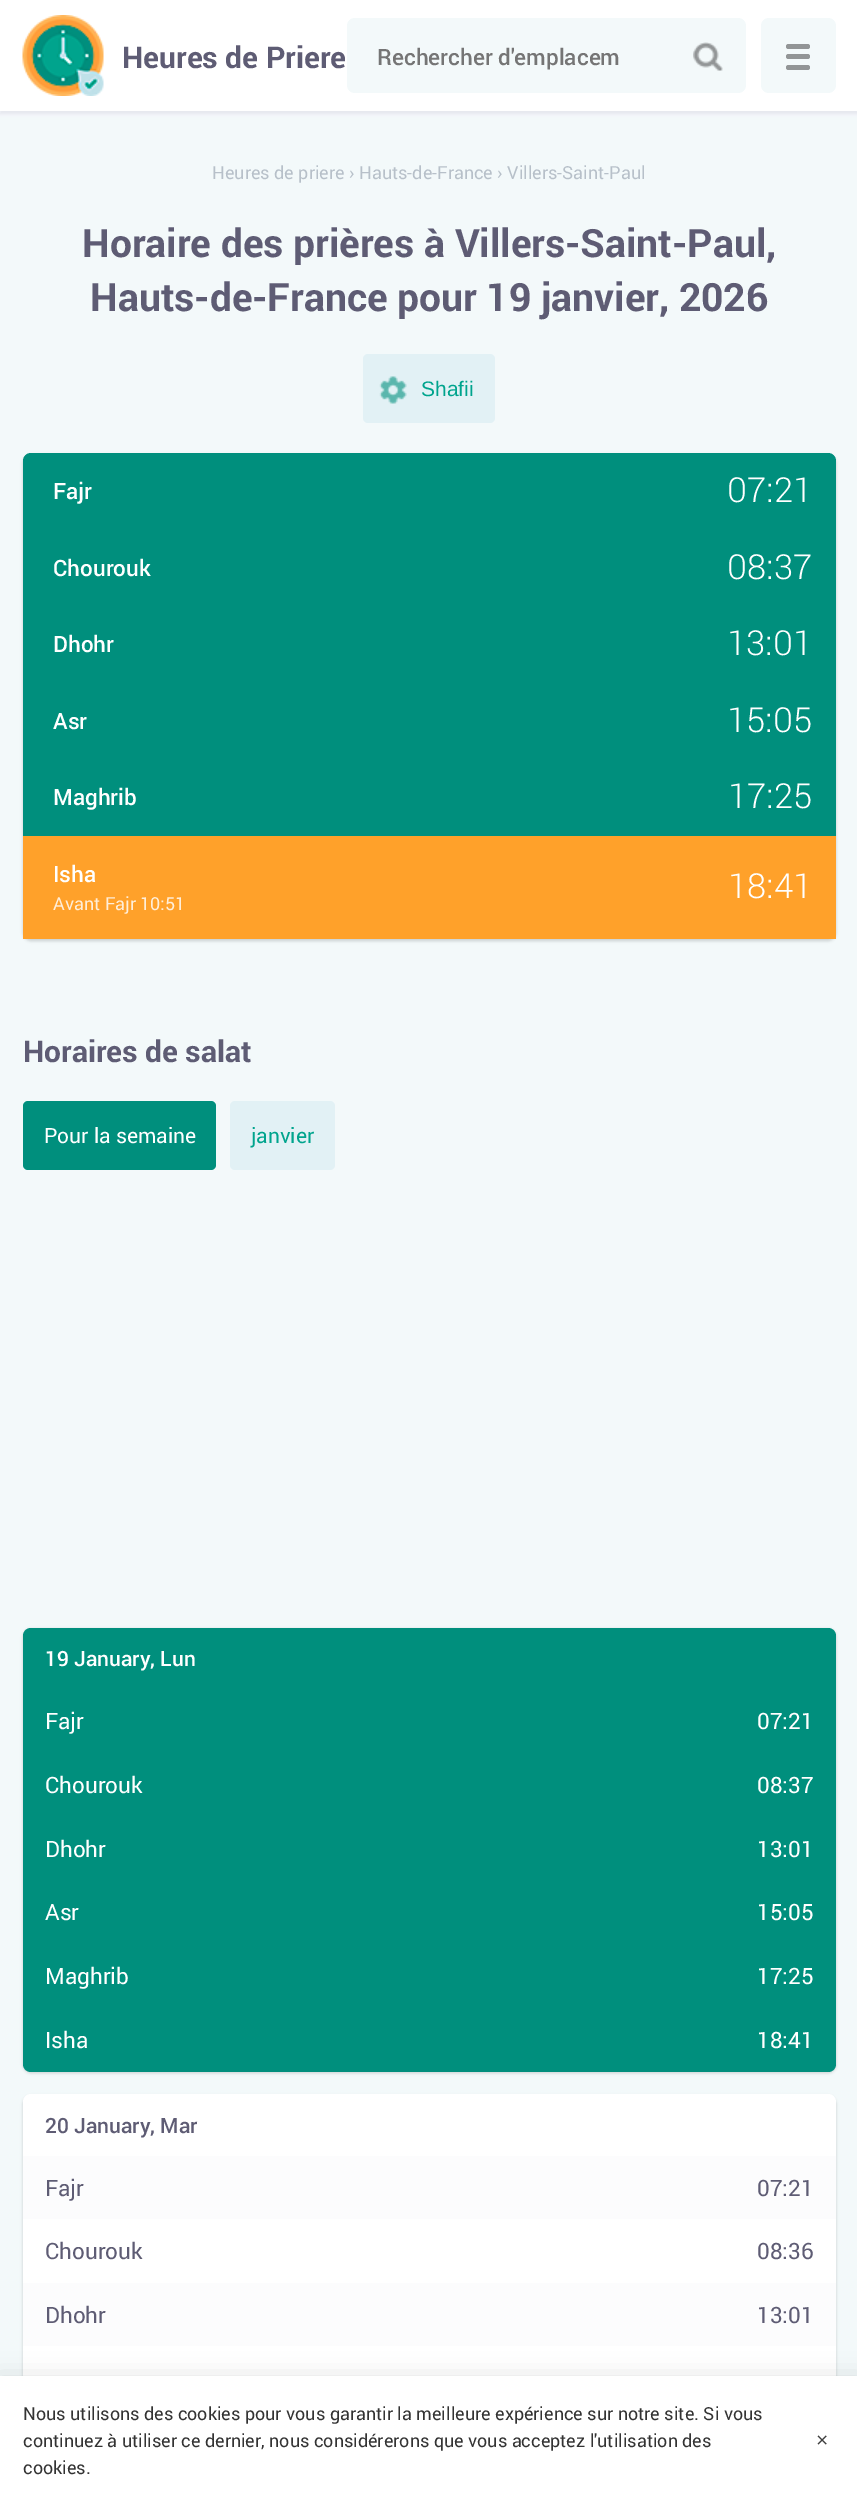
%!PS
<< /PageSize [857 2501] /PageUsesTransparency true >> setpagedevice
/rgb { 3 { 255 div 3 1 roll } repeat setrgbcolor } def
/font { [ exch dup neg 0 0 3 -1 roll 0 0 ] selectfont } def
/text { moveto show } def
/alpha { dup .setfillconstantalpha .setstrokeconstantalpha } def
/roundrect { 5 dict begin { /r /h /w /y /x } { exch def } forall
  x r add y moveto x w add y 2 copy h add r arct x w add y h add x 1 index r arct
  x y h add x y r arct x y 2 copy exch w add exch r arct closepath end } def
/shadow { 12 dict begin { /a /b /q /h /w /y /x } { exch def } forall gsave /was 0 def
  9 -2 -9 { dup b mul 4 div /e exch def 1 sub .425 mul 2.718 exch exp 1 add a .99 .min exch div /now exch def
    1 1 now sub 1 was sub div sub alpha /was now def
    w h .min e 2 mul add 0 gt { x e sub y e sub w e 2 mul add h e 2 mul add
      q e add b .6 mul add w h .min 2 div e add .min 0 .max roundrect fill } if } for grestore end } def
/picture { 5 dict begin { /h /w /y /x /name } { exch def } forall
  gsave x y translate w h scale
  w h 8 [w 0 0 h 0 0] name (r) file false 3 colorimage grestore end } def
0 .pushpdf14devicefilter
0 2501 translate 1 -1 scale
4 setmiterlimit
243 249 250 rgb
0 0 857 2501 rectfill
118 117 144 rgb
0 3 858 111 0 1.5 0.12 shadow
255 255 255 rgb
0 0 857 111 rectfill
(img_01.rgb) 22 15 82 81 picture
243 249 250 rgb
347 18 399 75 8 roundrect fill
(img_02.rgb) 693 42 30 29 picture
761 18 75 75 8 roundrect fill
146 149 150 rgb
786 54 24 5 2.5 roundrect fill
786 44 24 5 2.5 roundrect fill
786 65 24 5 2.5 roundrect fill
226 241 245 rgb
363 354 132 69 5 roundrect fill
(img_03.rgb) 379 376 28 28 picture
0 0 0 rgb
23 455 813 486 8 1.5 0.16 shadow
0 143 125 rgb
23 453 813 486 8 roundrect fill
255 161 42 rgb
23 836 813 103 rectfill
0 143 125 rgb
23 1101 193 69 5 roundrect fill
226 241 245 rgb
230 1101 105 69 5 roundrect fill
0 0 0 rgb
23 1629 813 444 8 1.5 0.16 shadow
0 143 125 rgb
31 1628 moveto 797 0 rlineto 4.5 0 8 3.5 8 8 rcurveto 0 53 rlineto -813 0 rlineto 0 -53 rlineto 0 -4.5 3.5 -8 8 -8 rcurveto closepath fill
23 1689 813 318 rectfill
23 2007 moveto 813 0 rlineto 0 57 rlineto 0 4.5 -3.5 8 -8 8 rcurveto -797 0 rlineto -4.5 0 -8 -3.5 -8 -8 rcurveto closepath fill
0 0 0 rgb
23 2096 813 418 8 1.5 0.16 shadow
255 255 255 rgb
23 2094 813 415 8 roundrect fill
252 252 253 rgb
23 2156 813 63 rectfill
23 2283 813 63 rectfill
0 0 0 rgb
-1 2378 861 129 0 12 0.12 shadow
255 255 255 rgb
0 2376 857 125 rectfill
/Roboto-Bold 30 font
94 92 116 rgb
(Heures de Priere) 122 68 text
/Roboto-Medium 22.5 font
117 117 117 rgb
(Rechercher d'emplacem) 377 65 text
/Roboto-Regular 18 font
183 192 201 rgb
(Heures de priere › Hauts-de-France › Villers-Saint-Paul) 212 179 text
/Roboto-Bold 39 font
94 92 116 rgb
(Horaire des prières à Villers-Saint-Paul,) 82 257 text
(Hauts-de-France pour 19 janvier, 2026) 90 311 text
/LiberationSans-Regular 21 font
0 164 141 rgb
(Shafii) 421 396 text
/Roboto-Medium 22.5 font
255 255 255 rgb
(Fajr) 53 499 text
/Roboto-Light 34.5 font
(07:21) 727 502 text
/Roboto-Medium 22.5 font
(Chourouk) 53 576 text
/Roboto-Light 34.5 font
(08:37) 727 579 text
/Roboto-Medium 22.5 font
(Dhohr) 53 652 text
/Roboto-Light 34.5 font
(13:01) 727 655 text
/Roboto-Medium 22.5 font
(Asr) 53 729 text
/Roboto-Light 34.5 font
(15:05) 727 732 text
/Roboto-Medium 22.5 font
(Maghrib) 53 805 text
/Roboto-Light 34.5 font
(17:25) 728 808 text
/Roboto-Medium 22.5 font
(Isha) 53 882 text
/Roboto-Light 34.5 font
(18:41) 728 898 text
/Roboto-Regular 18 font
255 238 217 rgb
(Avant Fajr 10:51) 53 910 text
/Roboto-Bold 30 font
94 92 116 rgb
(Horaires de salat) 23 1062 text
/Roboto-Regular 21 font
255 255 255 rgb
(Pour la semaine) 44 1143 text
0 164 141 rgb
(janvier) 251 1143 text
/Roboto-Medium 21 font
255 255 255 rgb
(19 January, Lun) 45 1666 text
/Roboto-Regular 22.5 font
(Fajr) 45 1729 text
(07:21) 757 1729 text
(Chourouk) 45 1793 text
(08:37) 757 1793 text
(Dhohr) 45 1857 text
(13:01) 757 1857 text
(Asr) 45 1920 text
(15:05) 757 1920 text
(Maghrib) 45 1984 text
(17:25) 757 1984 text
(Isha) 45 2048 text
(18:41) 757 2048 text
/Roboto-Medium 21 font
94 92 116 rgb
(20 January, Mar) 45 2133 text
/Roboto-Regular 22.5 font
(Fajr) 45 2196 text
(07:21) 757 2196 text
(Chourouk) 45 2259 text
(08:36) 757 2259 text
(Dhohr) 45 2323 text
(13:01) 757 2323 text
/Roboto-Regular 18 font
51 51 51 rgb
(Nous utilisons des cookies pour vous garantir la meilleure expérience sur notre site. Si vous) 23 2420 text
(continuez à utiliser ce dernier, nous considérerons que vous acceptez l'utilisation des) 23 2447 text
(cookies.) 23 2474 text
/LiberationSans-Regular 21 font
64 64 64 rgb
(×) 816 2447 text
.poppdf14devicefilter showpage
